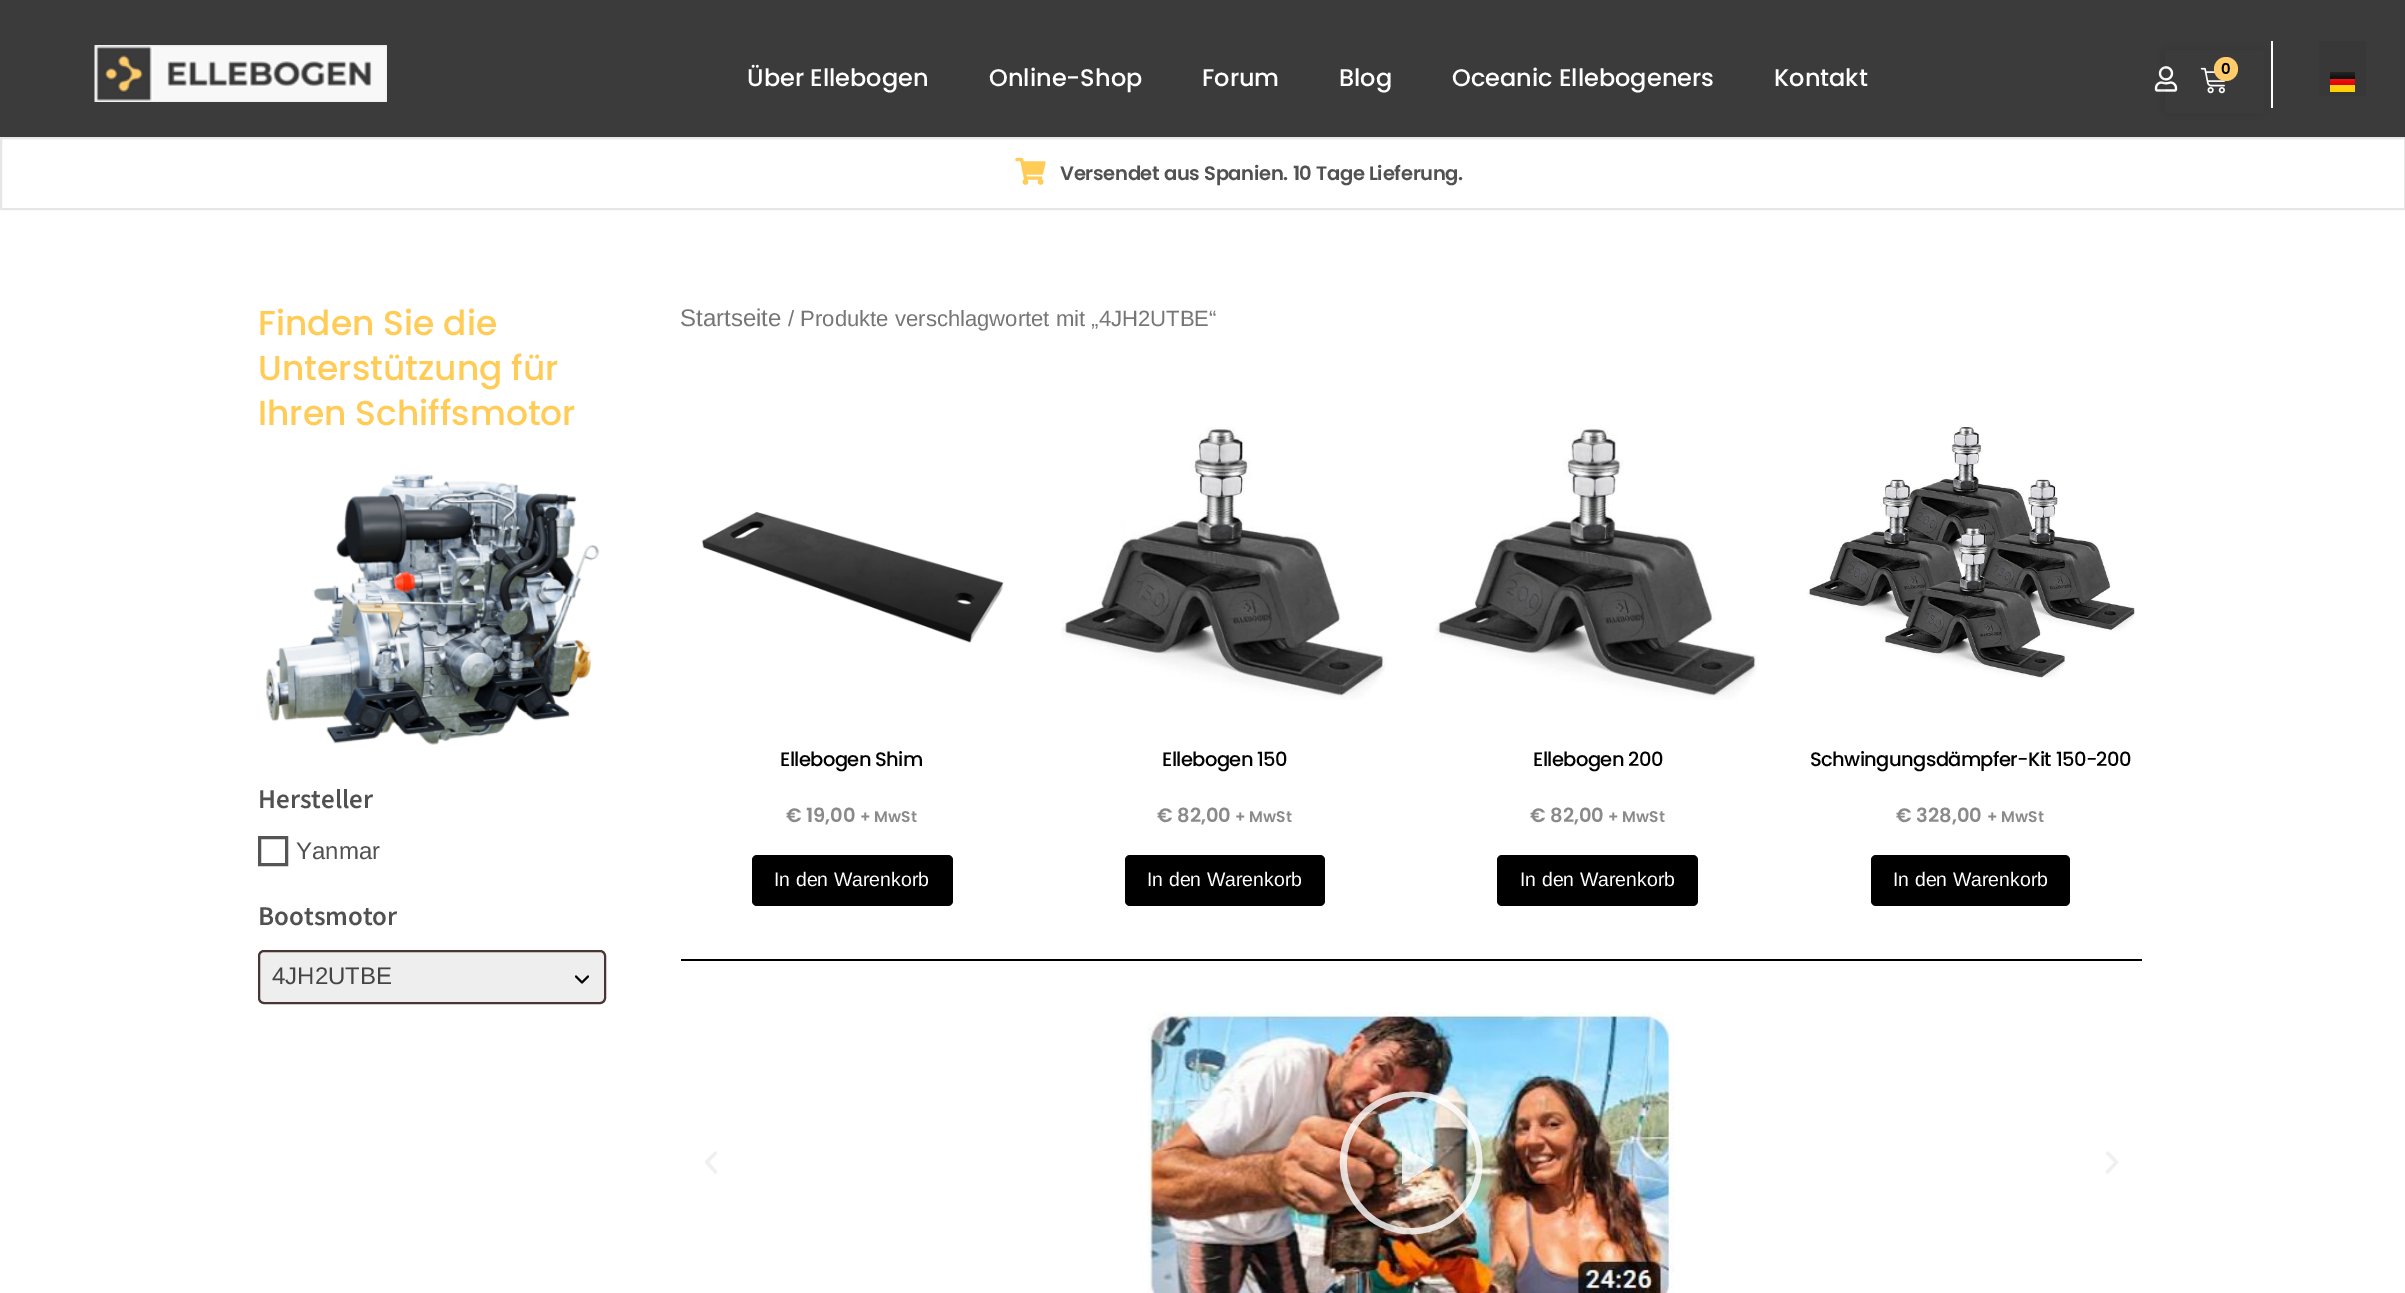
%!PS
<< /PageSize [2405 1293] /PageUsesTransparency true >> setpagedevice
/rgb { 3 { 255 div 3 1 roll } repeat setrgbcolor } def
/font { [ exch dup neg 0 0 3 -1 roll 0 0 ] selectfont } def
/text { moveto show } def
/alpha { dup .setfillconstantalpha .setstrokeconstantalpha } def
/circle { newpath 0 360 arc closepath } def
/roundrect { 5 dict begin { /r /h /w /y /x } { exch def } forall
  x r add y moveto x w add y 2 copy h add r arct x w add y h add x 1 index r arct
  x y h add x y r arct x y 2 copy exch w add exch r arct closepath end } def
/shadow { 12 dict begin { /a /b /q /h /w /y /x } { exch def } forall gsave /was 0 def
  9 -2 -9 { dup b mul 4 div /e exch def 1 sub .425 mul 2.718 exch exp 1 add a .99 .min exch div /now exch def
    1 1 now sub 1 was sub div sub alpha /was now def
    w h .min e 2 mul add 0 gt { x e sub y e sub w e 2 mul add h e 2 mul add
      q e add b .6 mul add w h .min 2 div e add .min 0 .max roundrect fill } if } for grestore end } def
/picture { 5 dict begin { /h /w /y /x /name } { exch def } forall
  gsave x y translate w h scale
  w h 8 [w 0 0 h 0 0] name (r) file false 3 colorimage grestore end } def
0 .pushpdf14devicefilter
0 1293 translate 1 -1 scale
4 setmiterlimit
255 255 255 rgb
0 0 2405 1293 rectfill
59 59 59 rgb
0 0 2405 137 rectfill
(img_01.rgb) 94 45 293 57 picture
(img_02.rgb) 2154 66 24 26 picture
gsave
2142 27 moveto 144 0 rlineto 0 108 rlineto -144 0 rlineto closepath 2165 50 moveto 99 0 rlineto 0 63 rlineto -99 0 rlineto closepath eoclip newpath
0 0 0 rgb
2166 51 96 60 0 7.5 0.15 shadow
grestore
(img_03.rgb) 2200 67 26 27 picture
255 203 107 rgb
2226 69 12 circle fill
255 255 255 rgb
2271 41 2 67 rectfill
56 56 56 rgb
2319 41 47 55 rectfill
gsave 2330 72 moveto 25 0 rlineto 0 7 rlineto -25 0 rlineto closepath clip newpath
<< /ShadingType 2 /ColorSpace /DeviceRGB /Coords [2343 72 2343 79] /Extend [true true] /Function << /FunctionType 2 /Domain [0 1] /C0 [0.149 0.149 0.149] /C1 [0.051 0.051 0.051] /N 1 >> >> shfill grestore
gsave 2330 79 moveto 25 0 rlineto 0 6 rlineto -25 0 rlineto closepath clip newpath
<< /ShadingType 2 /ColorSpace /DeviceRGB /Coords [2343 79 2343 85] /Extend [true true] /Function << /FunctionType 2 /Domain [0 1] /C0 [0.941 0.082 0.082] /C1 [0.871 0 0] /N 1 >> >> shfill grestore
gsave 2330 85 moveto 25 0 rlineto 0 7 rlineto -25 0 rlineto closepath clip newpath
<< /ShadingType 2 /ColorSpace /DeviceRGB /Coords [2343 85 2343 91] /Extend [true true] /Function << /FunctionType 2 /Domain [0 1] /C0 [1 0.835 0.129] /C1 [1 0.812 0] /N 1 >> >> shfill grestore
230 230 230 rgb
2 setlinewidth
1 138 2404 71 0.5 roundrect stroke
(img_04.rgb) 1015 157 31 28 picture
(img_05.rgb) 266 474 334 271 picture
85 85 85 rgb
3 setlinewidth
259.5 837.5 27 27 rectstroke
238 238 238 rgb
258 950 348 54 6 roundrect fill
0.8 alpha
32 7 7 rgb
2 setlinewidth
259 951 346 52 5 roundrect stroke
1 alpha
0 0 0 rgb
1 setlinecap
1 setlinejoin
576 976.5 moveto 6 6 rlineto 6 -6 rlineto stroke
(img_06.rgb) 701 511 303 132 picture
752 855 201 51 5 roundrect fill
(img_07.rgb) 1061 427 327 273 picture
1125 855 200 51 5 roundrect fill
(img_08.rgb) 1434 428 325 272 picture
1497 855 201 51 5 roundrect fill
(img_09.rgb) 1807 426 328 252 picture
1871 855 199 51 5 roundrect fill
681 959 1461 2 rectfill
(img_10.rgb) 705 1151 13 23 picture
(img_11.rgb) 1147 1012 528 281 picture
0.8 alpha
255 255 255 rgb
1462 1112 moveto -12 -12 -27 -19 -43 -20 rcurveto -68 -6 -105 72 -58 121 rcurveto 11 12 27 19 43 21 rcurveto 46 4 83 -33 78 -79 rcurveto -1 -16 -8 -31 -20 -43 rcurveto closepath 1458 1116 moveto 41 43 10 115 -50 112 rcurveto -15 -1 -29 -6 -40 -17 rcurveto -12 -12 -21 -27 -21 -45 rcurveto -1 -19 6 -36 19 -50 rcurveto 27 -26 65 -25 92 0 rcurveto closepath 1402 1146 moveto 0 38 rlineto 31 -19 rlineto closepath fill
1 alpha
(img_12.rgb) 2105 1151 14 23 picture
/Poppins-Medium 24 font
(Über Ellebogen) 747 86 text
(Online-Shop) 989 86 text
(Forum) 1202 86 text
(Blog) 1339 86 text
(Oceanic Ellebogeners) 1452 86 text
(Kontakt) 1774 86 text
/Poppins-SemiBold 15 font
0 0 0 rgb
(0) 2221 74 text
/Poppins-SemiBold 19.5 font
81 81 81 rgb
1060 180 moveto -0.3 0 (Versendet aus Spanien. 10 Tage Lieferung.) ashow
/Poppins-Medium 34.5 font
255 204 87 rgb
(Finden Sie die) 258 335 text
(Unterstützung für) 258 380 text
(Ihren Schiffsmotor) 258 425 text
/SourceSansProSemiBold-SemiBold 27 font
81 81 81 rgb
(Hersteller) 258 808 text
/LiberationSans-Regular 24 font
(Yanmar) 296 859 text
/SourceSansProSemiBold-SemiBold 27 font
(Bootsmotor) 258 925 text
/LiberationSans-Regular 24 font
68 68 68 rgb
(4JH2UTBE) 272 984 text
118 118 118 rgb
(Startseite) 680 326 text
/LiberationSans-Regular 22.1 font
(/ Produkte verschlagwortet mit „4JH2UTBE“) 788 326 text
/Poppins-Medium 19.5 font
0 0 0 rgb
780 766 moveto -0.6 0 (Ellebogen Shim) ashow
/Poppins-SemiBold 19.5 font
138 138 138 rgb
(€ 19,00) 786 822 text
/Poppins-SemiBold 15.5 font
(+ MwSt) 860 822 text
/LiberationSans-Regular 19.5 font
255 255 255 rgb
(In den Warenkorb) 774 886 text
/Poppins-Medium 19.5 font
0 0 0 rgb
1162 766 moveto -0.6 0 (Ellebogen 150) ashow
/Poppins-SemiBold 19.5 font
138 138 138 rgb
(€ 82,00) 1157 822 text
/Poppins-SemiBold 15.5 font
(+ MwSt) 1235 822 text
/LiberationSans-Regular 19.5 font
255 255 255 rgb
(In den Warenkorb) 1147 886 text
/Poppins-Medium 19.5 font
0 0 0 rgb
1533 766 moveto -0.6 0 (Ellebogen 200) ashow
/Poppins-SemiBold 19.5 font
138 138 138 rgb
(€ 82,00) 1530 822 text
/Poppins-SemiBold 15.5 font
(+ MwSt) 1608 822 text
/LiberationSans-Regular 19.5 font
255 255 255 rgb
(In den Warenkorb) 1520 886 text
/Poppins-Medium 19.5 font
0 0 0 rgb
1810 766 moveto -0.6 0 (Schwingungsdämpfer-Kit 150-200) ashow
/Poppins-SemiBold 19.5 font
138 138 138 rgb
(€ 328,00) 1896 822 text
/Poppins-SemiBold 15.5 font
(+ MwSt) 1987 822 text
/LiberationSans-Regular 19.5 font
255 255 255 rgb
(In den Warenkorb) 1893 886 text
.poppdf14devicefilter showpage
